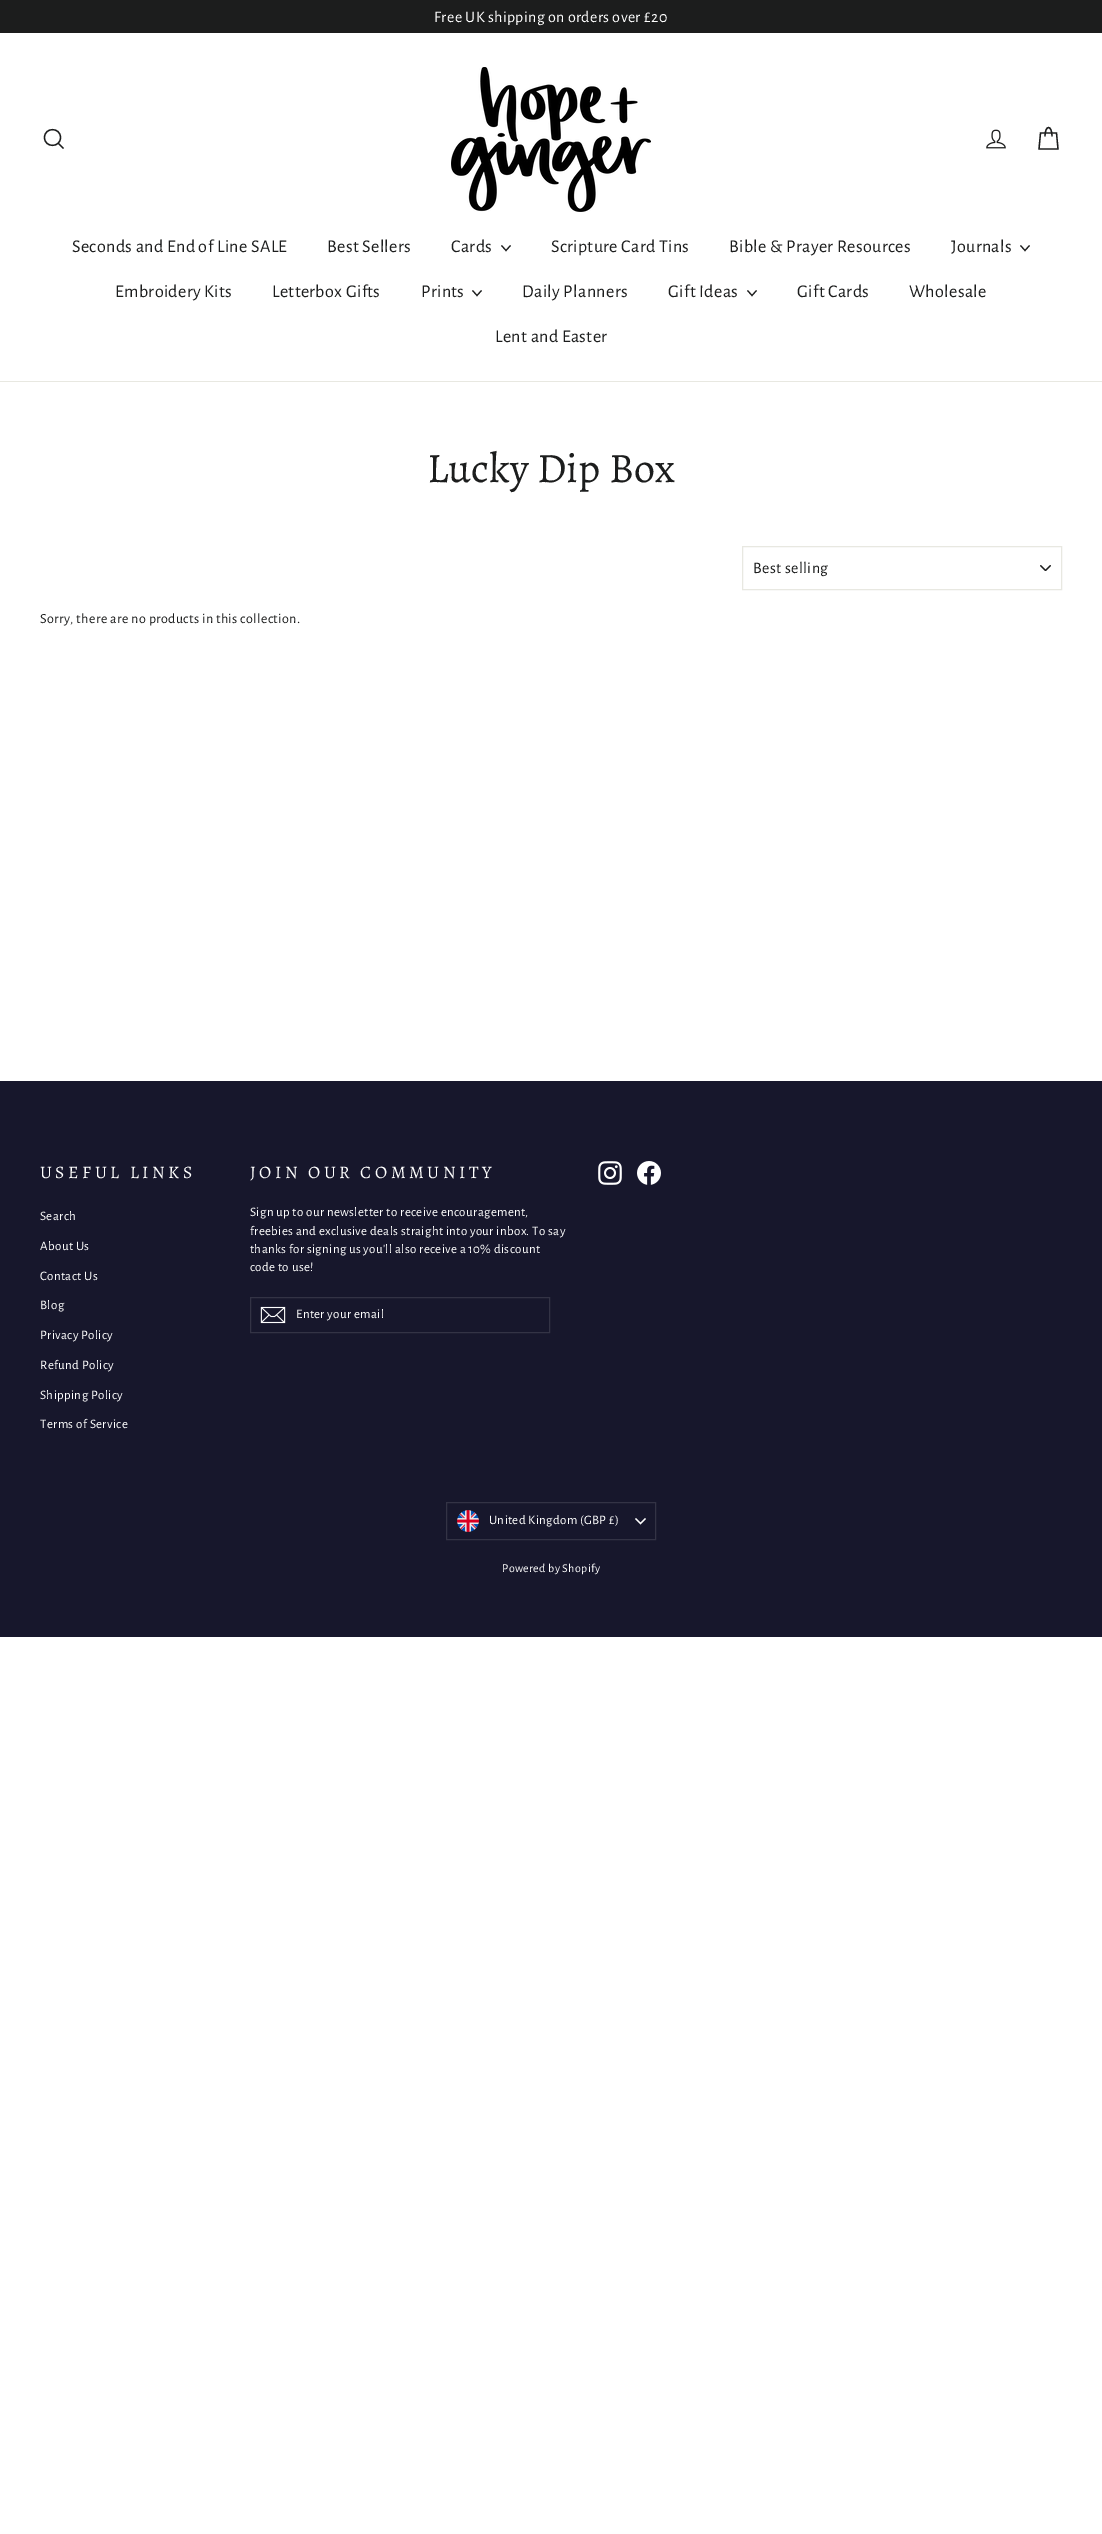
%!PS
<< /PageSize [1102 2534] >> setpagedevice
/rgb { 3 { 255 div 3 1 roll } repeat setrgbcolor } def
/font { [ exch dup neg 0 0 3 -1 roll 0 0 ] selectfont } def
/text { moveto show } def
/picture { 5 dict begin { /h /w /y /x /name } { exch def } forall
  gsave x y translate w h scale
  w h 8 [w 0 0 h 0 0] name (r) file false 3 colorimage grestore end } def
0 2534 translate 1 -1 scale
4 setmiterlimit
255 255 255 rgb
0 0 1102 2534 rectfill
28 29 29 rgb
0 0 1102 33 rectfill
232 232 225 rgb
0 381 1102 1 rectfill
28 29 29 rgb
1.3 setlinewidth
60.5 137.5 moveto 0 10.5 -16 10.5 -16 0 rcurveto 0 -10.5 16 -10.5 16 0 rcurveto closepath 63.5 148.5 moveto -5 -5 rlineto stroke
(img_01.rgb) 451 67 200 145 picture
(img_02.rgb) 986 129 20 20 picture
1045 136.5 moveto 0 -12 7 -12 7 0 rcurveto 1040.5 133 moveto 16 0 rlineto 1.5 16 rlineto -19 0 rlineto closepath stroke
1.1 setlinewidth
501.5 245.5 moveto 4.5 5 rlineto 4.5 -5 rlineto stroke
1020.5 245.5 moveto 4.5 5 rlineto 4.5 -5 rlineto stroke
472.5 290.5 moveto 4.5 5 rlineto 4.5 -5 rlineto stroke
747.5 290.5 moveto 4.5 5 rlineto 4.5 -5 rlineto stroke
(img_03.rgb) 1040 565 11 6 picture
232 232 225 rgb
1 setlinewidth
742.5 546.5 319 43 rectstroke
23 23 44 rgb
0 1081 1102 556 rectfill
51 51 69 rgb
250.5 1297.5 299 35 rectstroke
(img_04.rgb) 260 1306 26 18 picture
(img_05.rgb) 598 1161 24 24 picture
(img_06.rgb) 637 1161 24 24 picture
446.5 1502.5 209 37 rectstroke
(img_07.rgb) 457 1510 22 22 picture
255 255 255 rgb
1.2 setlinewidth
635.5 1518.5 moveto 5 5 rlineto 5 -5 rlineto stroke
/AlegreyaSans-Regular 16 font
434 22 moveto 0.35 0 (Free UK shipping on orders over £20) ashow
/AlegreyaSans-Regular 18 font
28 29 29 rgb
72 252 moveto 0.35 0 (Seconds and End of Line SALE) ashow
327 252 moveto 0.35 0 (Best Sellers) ashow
451 252 moveto 0.35 0 (Cards) ashow
551 252 moveto 0.35 0 (Scripture Card Tins) ashow
729 252 moveto 0.35 0 (Bible & Prayer Resources) ashow
951 252 moveto 0.35 0 (Journals) ashow
115 297 moveto 0.35 0 (Embroidery Kits) ashow
272 297 moveto 0.35 0 (Letterbox Gifts) ashow
421 297 moveto 0.35 0 (Prints) ashow
522 297 moveto 0.35 0 (Daily Planners) ashow
668 297 moveto 0.35 0 (Gift Ideas) ashow
797 297 moveto 0.35 0 (Gift Cards) ashow
909 297 moveto 0.35 0 (Wholesale) ashow
495 342 moveto 0.35 0 (Lent and Easter) ashow
/Alegreya-Regular 42 font
(Lucky Dip Box) 427 482 text
/AlegreyaSans-Regular 16 font
753 573 moveto 0.4 0 (Best selling) ashow
/AlegreyaSans-Regular 14 font
40 623 moveto 0.35 0 (Sorry, there are no products in this collection.) ashow
/Alegreya-Regular 17.6 font
255 255 255 rgb
40 1178 moveto 3.5 0 (USEFUL LINKS) ashow
/AlegreyaSans-Regular 13 font
40 1220 moveto 0.35 0 (Search) ashow
40 1250 moveto 0.35 0 (About Us) ashow
40 1280 moveto 0.35 0 (Contact Us) ashow
40 1309 moveto 0.35 0 (Blog) ashow
40 1339 moveto 0.35 0 (Privacy Policy) ashow
40 1369 moveto 0.35 0 (Refund Policy) ashow
40 1399 moveto 0.35 0 (Shipping Policy) ashow
40 1428 moveto 0.35 0 (Terms of Service) ashow
/Alegreya-Regular 17.6 font
250 1178 moveto 3.5 0 (JOIN OUR COMMUNITY) ashow
/AlegreyaSans-Regular 13 font
250 1216 moveto 0.33 0 (Sign up to our newsletter to receive encouragement,) ashow
250 1235 moveto 0.33 0 (freebies and exclusive deals straight into your inbox. To say) ashow
250 1253 moveto 0.33 0 (thanks for signing us you'll also receive a 10% discount) ashow
250 1271 moveto 0.33 0 (code to use!) ashow
296 1318 moveto 0.33 0 (Enter your email) ashow
489 1524 moveto 0.33 0 (United Kingdom \(GBP £\)) ashow
/AlegreyaSans-Regular 12 font
502 1572 moveto 0.35 0 (Powered by Shopify) ashow
showpage
